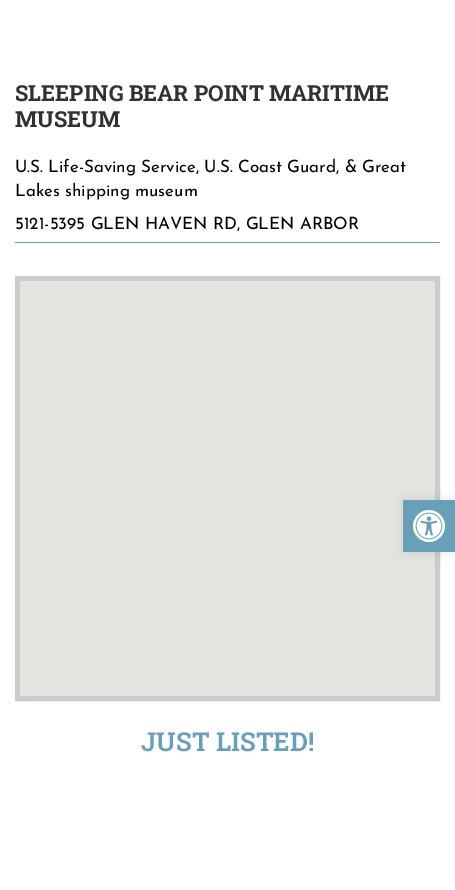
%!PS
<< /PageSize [455 890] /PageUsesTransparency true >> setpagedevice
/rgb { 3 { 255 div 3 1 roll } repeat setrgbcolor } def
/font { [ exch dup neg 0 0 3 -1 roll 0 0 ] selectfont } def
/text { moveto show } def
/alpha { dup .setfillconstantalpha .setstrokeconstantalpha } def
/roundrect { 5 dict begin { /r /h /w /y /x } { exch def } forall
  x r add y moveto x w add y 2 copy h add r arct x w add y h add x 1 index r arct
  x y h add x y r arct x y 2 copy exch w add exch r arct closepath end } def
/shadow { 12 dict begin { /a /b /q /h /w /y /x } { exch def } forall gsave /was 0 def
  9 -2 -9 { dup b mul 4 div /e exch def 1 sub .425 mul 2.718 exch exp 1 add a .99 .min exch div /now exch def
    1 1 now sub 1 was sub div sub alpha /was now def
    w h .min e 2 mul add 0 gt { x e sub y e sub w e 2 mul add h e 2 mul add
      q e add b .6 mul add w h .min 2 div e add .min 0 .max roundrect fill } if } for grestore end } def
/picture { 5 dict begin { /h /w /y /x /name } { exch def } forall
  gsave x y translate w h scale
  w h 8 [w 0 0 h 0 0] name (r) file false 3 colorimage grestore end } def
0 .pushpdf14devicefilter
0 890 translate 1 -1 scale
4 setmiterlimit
255 255 255 rgb
0 0 455 890 rectfill
105 160 185 rgb
15 242 425 1 rectfill
204 204 204 rgb
5 setlinewidth
17.5 278.5 420 420 rectstroke
229 227 223 rgb
20 281 415 415 rectfill
0 0 0 rgb
403 500 52 52 0 5 0.1 shadow
105 160 185 rgb
403 500 52 52 rectfill
(img_01.rgb) 413 510 32 32 picture
/RobotoSlab-Bold 22 font
49 49 49 rgb
(SLEEPING BEAR POINT MARITIME) 15 101 text
(MUSEUM) 15 127 text
/JosefinSans-Regular 17 font
0 0 0 rgb
(U.S. Life-Saving Service, U.S. Coast Guard, & Great) 15 172 text
(Lakes shipping museum) 15 196 text
(5121-5395 GLEN HAVEN RD, GLEN ARBOR) 15 229 text
/RobotoSlab-SemiBold 26 font
105 160 185 rgb
(JUST LISTED!) 141 751 text
.poppdf14devicefilter showpage
